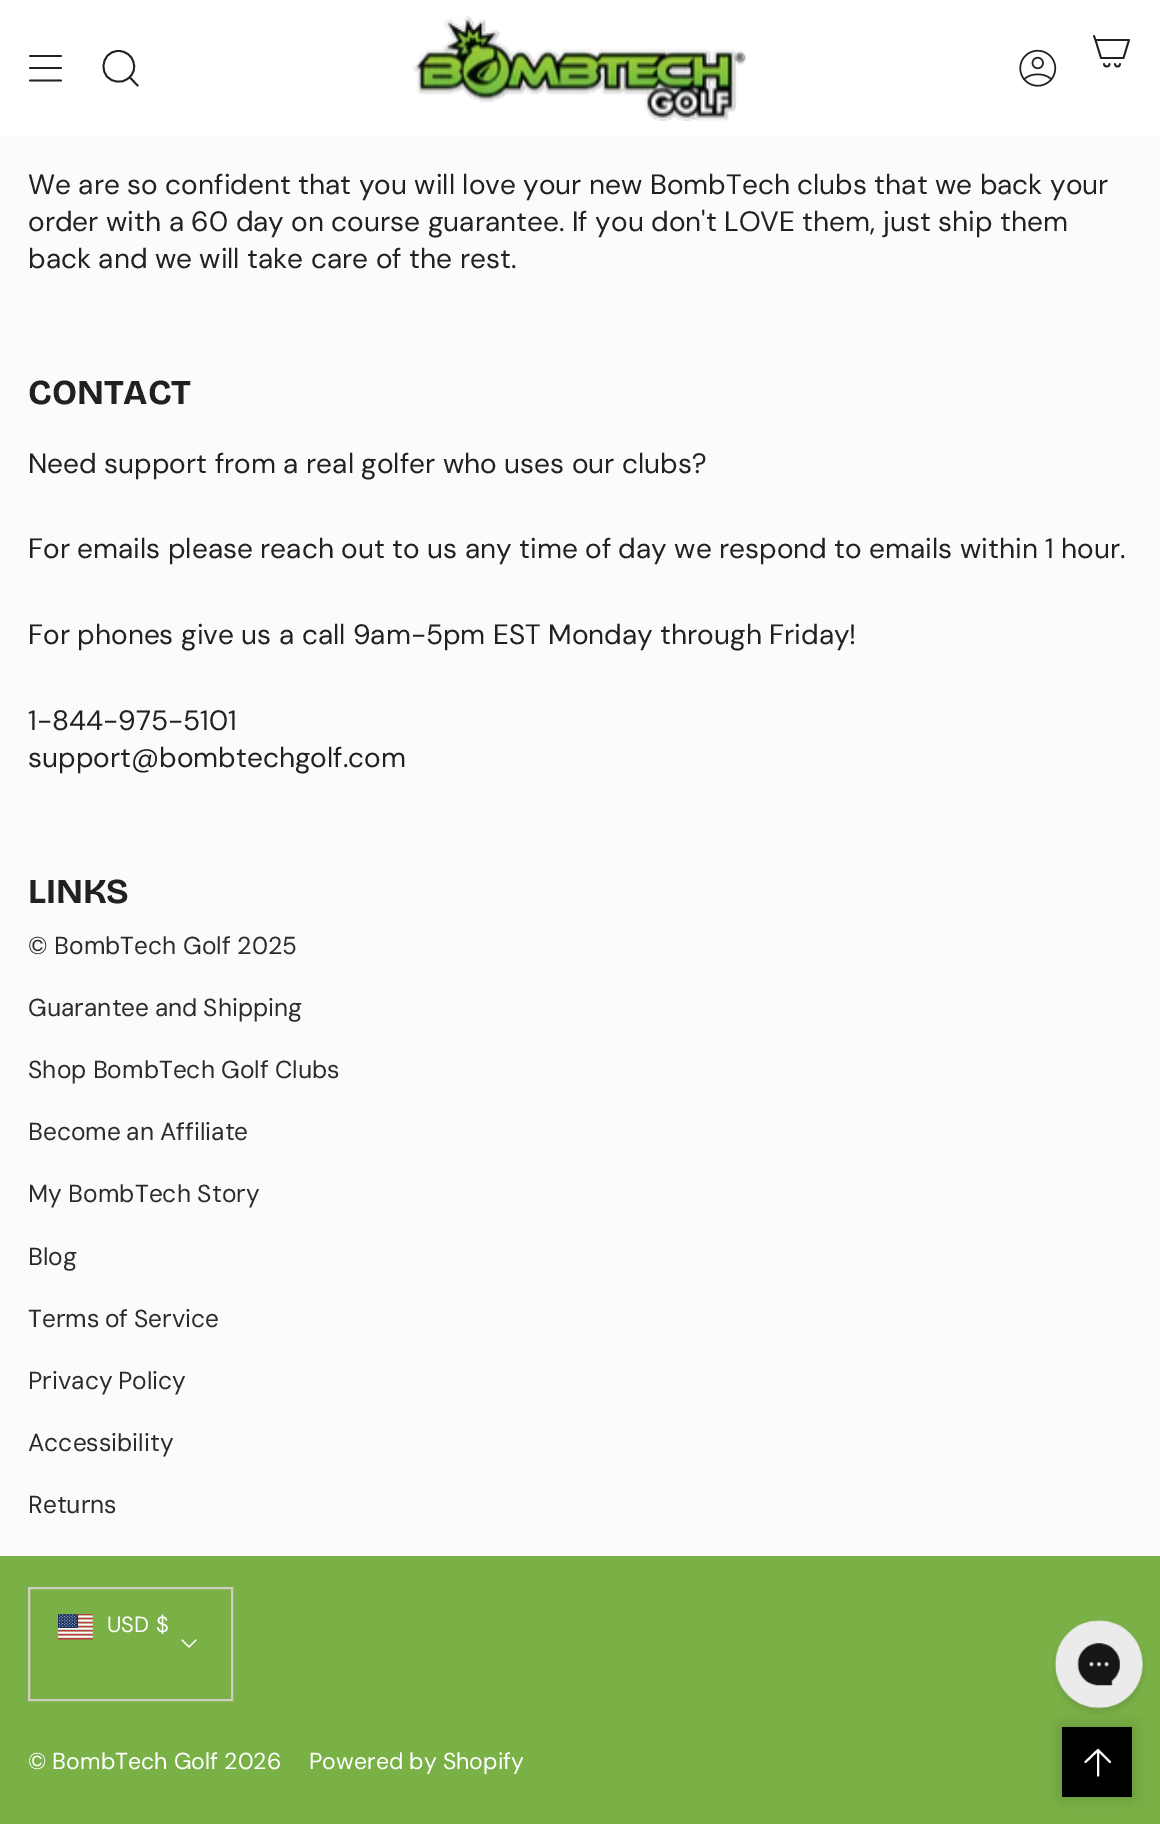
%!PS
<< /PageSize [1160 1824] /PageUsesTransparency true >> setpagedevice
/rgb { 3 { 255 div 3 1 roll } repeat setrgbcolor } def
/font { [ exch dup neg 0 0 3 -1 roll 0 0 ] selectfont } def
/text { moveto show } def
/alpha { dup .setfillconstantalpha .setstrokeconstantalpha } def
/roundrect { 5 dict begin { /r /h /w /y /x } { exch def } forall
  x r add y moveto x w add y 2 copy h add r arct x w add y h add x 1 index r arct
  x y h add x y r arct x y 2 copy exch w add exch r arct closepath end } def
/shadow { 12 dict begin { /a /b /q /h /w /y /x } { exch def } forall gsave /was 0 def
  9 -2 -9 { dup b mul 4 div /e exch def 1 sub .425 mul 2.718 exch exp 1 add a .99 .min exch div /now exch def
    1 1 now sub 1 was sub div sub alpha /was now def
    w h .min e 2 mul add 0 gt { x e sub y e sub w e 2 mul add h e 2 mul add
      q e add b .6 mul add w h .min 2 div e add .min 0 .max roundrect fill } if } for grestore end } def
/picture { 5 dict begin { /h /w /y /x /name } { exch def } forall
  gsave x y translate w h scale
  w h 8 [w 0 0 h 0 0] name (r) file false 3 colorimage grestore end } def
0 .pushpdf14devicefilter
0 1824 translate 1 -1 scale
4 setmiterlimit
122 177 71 rgb
0 0 1160 1824 rectfill
255 255 255 rgb
0 0 1160 137 rectfill
33 33 33 rgb
1.8 setlinewidth
1 setlinecap
1 setlinejoin
30 56 moveto 31 0 rlineto 30 68 moveto 31 0 rlineto 30 80.5 moveto 31 0 rlineto stroke
0 setlinecap
0 setlinejoin
118.5 51 moveto 15 0 21.5 19 9.5 27.5 rcurveto -3 2.5 -6.5 3.5 -10 3 rcurveto -20 -0.5 -19 -30.5 0.5 -30.5 rcurveto closepath 129.5 77 moveto 8.5 9 rlineto stroke
(img_01.rgb) 413 15 333 106 picture
(img_02.rgb) 1019 49 38 38 picture
1 setlinecap
1 setlinejoin
1095.5 40 moveto 33.5 0 rlineto -5.5 18 rlineto -22.5 0 rlineto closepath 1095.5 40 moveto -1.5 -4 rlineto 1109.5 64 moveto 0 3.5 -5.5 3.5 -5.5 0 rcurveto 1120 64 moveto 0 3.5 -5 3.5 -5 0 rcurveto stroke
252 251 249 rgb
0 137 1160 1419 rectfill
209 205 196 rgb
2 setlinewidth
0 setlinecap
0 setlinejoin
29 1588 203 112 rectstroke
(img_03.rgb) 58 1614 35 26 picture
255 255 255 rgb
1.2 setlinewidth
1 setlinecap
1 setlinejoin
182 1640 moveto 7 7 rlineto 7 -7 rlineto stroke
0 0 0 rgb
1062 1727 70 70 0 9 0.2 shadow
(img_04.rgb) 1052 1620 94 95 picture
1062 1727 70 70 rectfill
255 255 255 rgb
2 setlinewidth
1098 1775.5 moveto 0 -25.5 rlineto 1098 1750 moveto 12 12 rlineto 1098 1750 moveto -12.5 12 rlineto stroke
/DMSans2-Regular 28 font
33 33 33 rgb
(We are so confident that you will love your new BombTech clubs that we back your) 28 194 text
(order with a 60 day on course guarantee. If you don't LOVE them, just ship them) 28 231 text
(back and we will take care of the rest.) 28 268 text
/BricolageGrotesque-Bold 35 font
(CONTACT) 28 404 text
/DMSans2-Regular 28 font
(Need support from a real golfer who uses our clubs?) 28 473 text
(For emails please reach out to us any time of day we respond to emails within 1 hour.) 28 558 text
(For phones give us a call 9am-5pm EST Monday through Friday!) 28 644 text
(1-844-975-5101) 28 730 text
(support@bombtechgolf.com) 28 767 text
/BricolageGrotesque-Bold 35 font
(LINKS) 28 903 text
/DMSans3-Regular 24.5 font
40 44 46 rgb
(© BombTech Golf 2025) 28 954 text
28 1016 moveto -1 0 32 (Guarantee and Shipping) widthshow
28 1078 moveto -0.5 0 32 (Shop BombTech Golf Clubs) widthshow
28 1140 moveto -1 0 32 (Become an Affiliate) widthshow
(My BombTech Story) 28 1202 text
(Blog) 28 1265 text
28 1327 moveto -1 0 32 (Terms of Service) widthshow
28 1389 moveto -1 0 32 (Privacy Policy) widthshow
(Accessibility) 28 1451 text
(Returns) 28 1513 text
/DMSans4-Regular 22 font
255 255 255 rgb
(USD) 107 1632 text
/DMSans3-Regular 22 font
($) 156 1632 text
/DMSans-Regular 23.1 font
(© BombTech Golf 2026) 28 1769 text
(Powered by Shopify) 309 1769 text
.poppdf14devicefilter showpage
